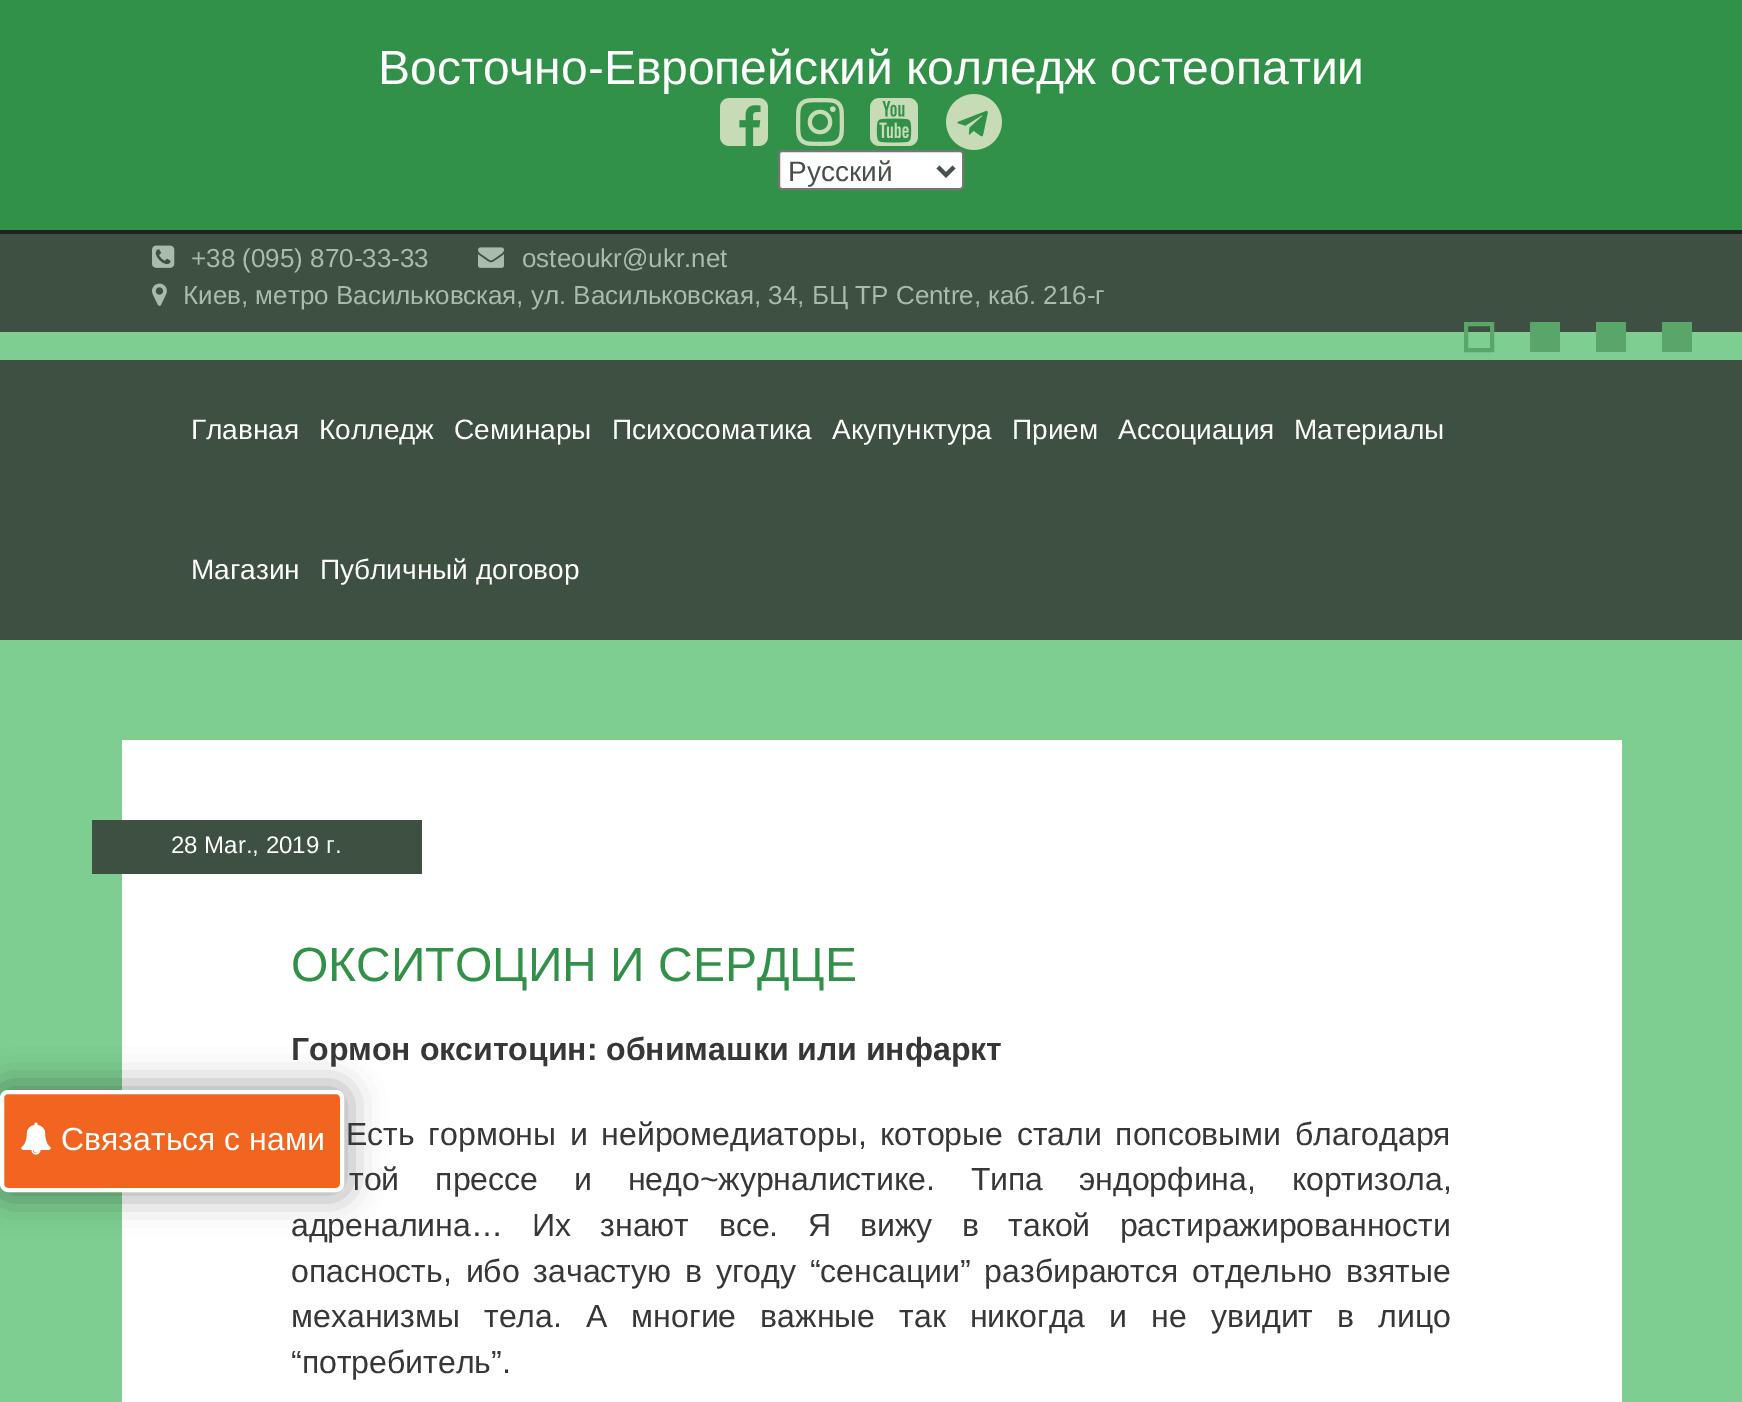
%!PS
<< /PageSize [1742 1402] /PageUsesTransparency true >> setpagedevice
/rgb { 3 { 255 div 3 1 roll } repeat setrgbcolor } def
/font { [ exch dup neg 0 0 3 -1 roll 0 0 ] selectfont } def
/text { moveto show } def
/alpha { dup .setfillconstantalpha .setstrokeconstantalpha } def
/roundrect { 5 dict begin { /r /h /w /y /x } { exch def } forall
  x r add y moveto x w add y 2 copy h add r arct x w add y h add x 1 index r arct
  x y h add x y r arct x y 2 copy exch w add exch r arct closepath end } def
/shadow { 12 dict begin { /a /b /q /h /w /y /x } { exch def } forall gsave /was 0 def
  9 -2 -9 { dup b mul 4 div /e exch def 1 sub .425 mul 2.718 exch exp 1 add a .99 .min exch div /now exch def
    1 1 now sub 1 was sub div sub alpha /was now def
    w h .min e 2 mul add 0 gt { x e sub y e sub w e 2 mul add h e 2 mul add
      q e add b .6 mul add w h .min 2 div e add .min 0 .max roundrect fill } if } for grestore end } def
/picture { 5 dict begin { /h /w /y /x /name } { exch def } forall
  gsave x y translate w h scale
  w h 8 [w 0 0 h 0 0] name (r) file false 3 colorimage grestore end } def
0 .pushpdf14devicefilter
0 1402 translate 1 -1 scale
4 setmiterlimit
125 206 144 rgb
0 0 1742 1402 rectfill
50 145 72 rgb
0 0 1742 230 rectfill
34 34 34 rgb
0 230 1742 4 rectfill
(img_01.rgb) 720 98 48 48 picture
(img_02.rgb) 796 98 48 48 picture
(img_03.rgb) 870 98 48 48 picture
(img_04.rgb) 946 94 56 56 picture
255 255 255 rgb
779 151 184 38 3 roundrect gsave fill grestore
118 118 118 rgb
2 setlinewidth
stroke
71 81 73 rgb
4 setlinewidth
938 167 moveto 8 8 rlineto 8 -8 rlineto stroke
62 80 66 rgb
0 234 1742 98 rectfill
(img_05.rgb) 152 245 23 23 picture
(img_06.rgb) 478 247 26 21 picture
(img_07.rgb) 152 283 15 23 picture
90 166 104 rgb
1466 324 26 26 rectstroke
1530 322 30 30 rectfill
1596 322 30 30 rectfill
1662 322 30 30 rectfill
62 80 66 rgb
0 360 1742 280 rectfill
255 255 255 rgb
122 740 1500 662 rectfill
62 80 66 rgb
92 820 330 54 rectfill
0 0 0 rgb
-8 1082 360 118 16 16 0.3 shadow
242 101 33 rgb
2 1092 340 98 6 roundrect gsave fill grestore
255 255 255 rgb
stroke
(img_08.rgb) 21 1122 30 33 picture
/LiberationSans-Regular 48 font
(Восточно-Европейский колледж остеопатии) 378 84 text
/LiberationSans-Regular 28 font
71 81 73 rgb
(Русский) 788 181 text
/LiberationSans-Regular 26 font
169 187 173 rgb
(+38 \(095\) 870-33-33) 191 267 text
(osteoukr@ukr.net) 522 267 text
(Киев, метро Васильковская, ул. Васильковская, 34, БЦ TP Centre, каб. 216-г) 183 304 text
/LiberationSans-Regular 28 font
255 255 255 rgb
(Главная) 191 439 text
(Колледж) 319 439 text
(Семинары) 454 439 text
(Психосоматика) 612 439 text
(Акупунктура) 832 439 text
(Прием) 1012 439 text
(Ассоциация) 1118 439 text
(Материалы) 1294 439 text
(Магазин) 191 579 text
(Публичный договор) 320 579 text
/LiberationSans-Regular 24 font
(28 Mar., 2019 г.) 171 853 text
/LiberationSans-Regular 48 font
50 145 72 rgb
(ОКСИТОЦИН И СЕРДЦЕ) 291 981 text
/LiberationSans-Bold 32 font
55 55 55 rgb
(Гормон окситоцин: обнимашки или инфаркт) 291 1060 text
/LiberationSans-Regular 32 font
346 1145 moveto 4.75 0 32 (Есть гормоны и нейромедиаторы, которые стали попсовыми благодаря) widthshow
349 1190 moveto 27 0 32 (той прессе и недо~журналистике. Типа эндорфина, кортизола,) widthshow
291 1236 moveto 20.5 0 32 (адреналина… Их знают все. Я вижу в такой растиражированности) widthshow
291 1282 moveto 5 0 32 (опасность, ибо зачастую в угоду “сенсации” разбираются отдельно взятые) widthshow
291 1327 moveto 15.25 0 32 (механизмы тела. А многие важные так никогда и не увидит в лицо) widthshow
(“потребитель”.) 291 1373 text
255 255 255 rgb
(Связаться с нами) 61 1150 text
.poppdf14devicefilter showpage
